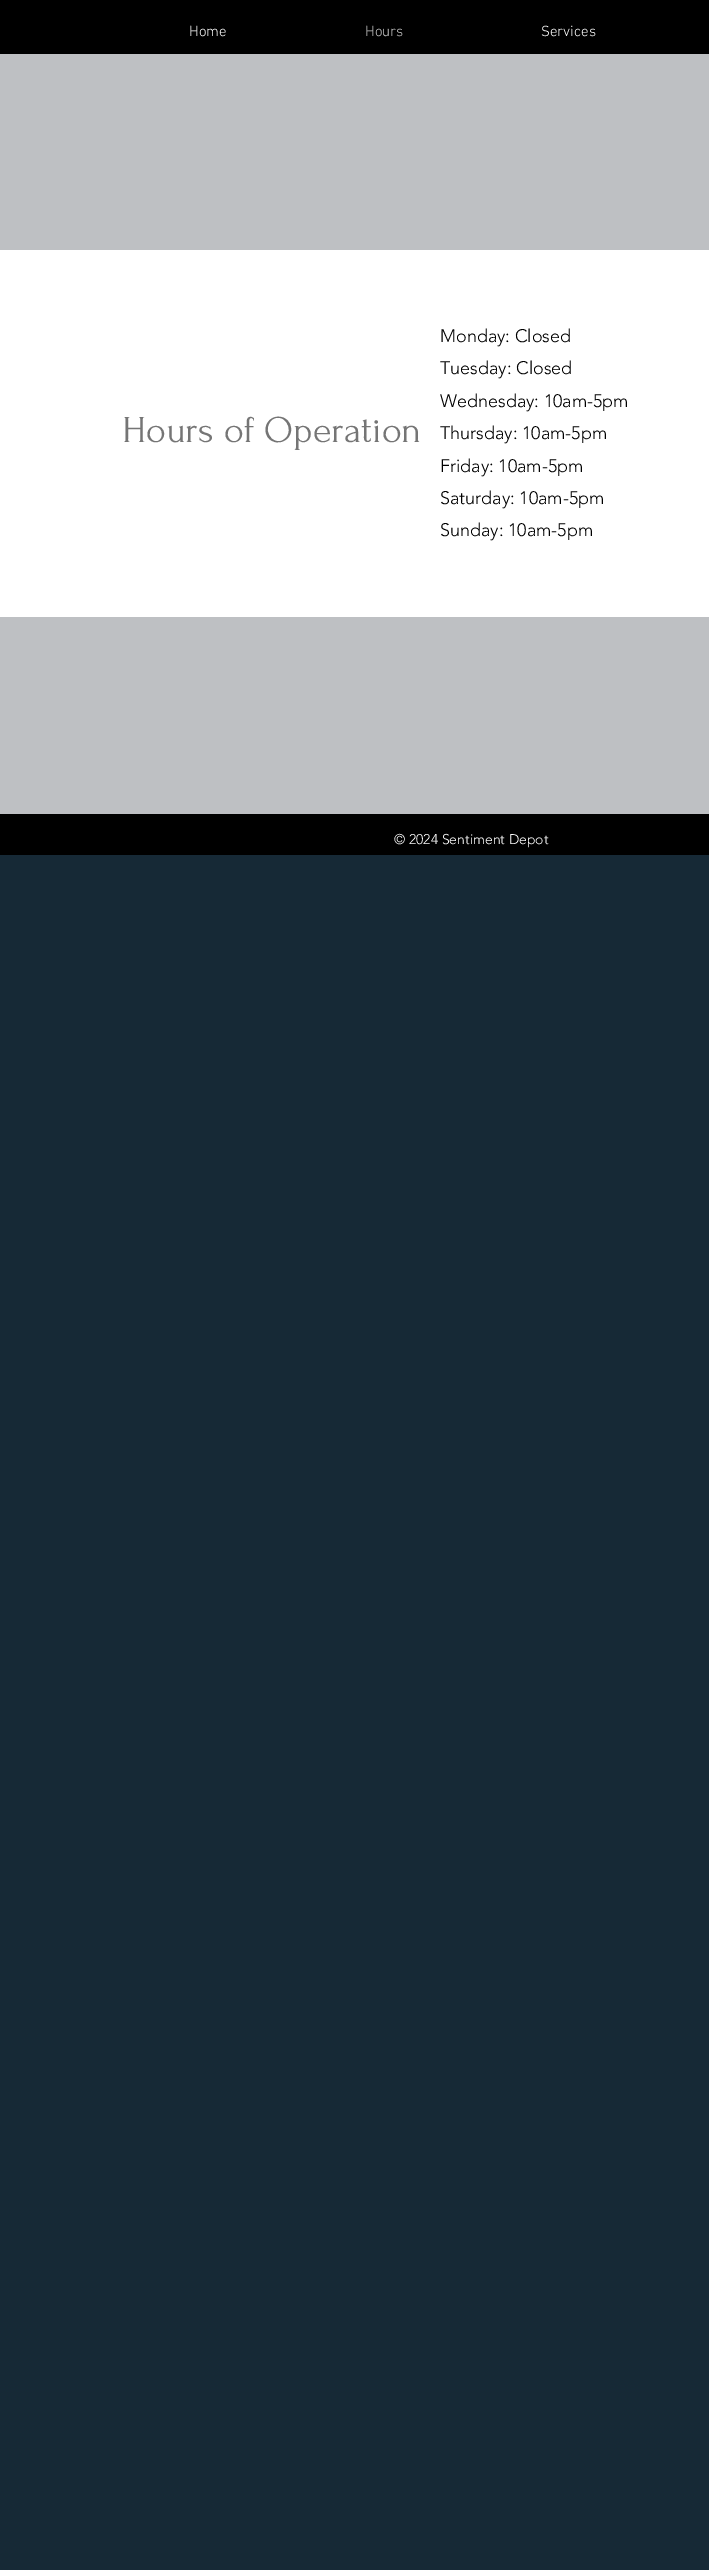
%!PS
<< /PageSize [709 2570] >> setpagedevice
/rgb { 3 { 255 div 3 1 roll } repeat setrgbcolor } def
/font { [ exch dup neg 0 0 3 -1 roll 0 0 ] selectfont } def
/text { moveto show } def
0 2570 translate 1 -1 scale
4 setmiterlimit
22 41 54 rgb
0 0 709 2570 rectfill
0 0 0 rgb
0 0 709 54 rectfill
190 192 195 rgb
0 54 709 760 rectfill
255 255 255 rgb
0 250 709 367 rectfill
0 0 0 rgb
0 814 709 41 rectfill
/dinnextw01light-Light 15 font
255 255 255 rgb
(Home) 189 36 text
199 199 199 rgb
(Hours) 365 36 text
255 255 255 rgb
(Services) 541 36 text
/Forum-Regular 38 font
117 117 117 rgb
(Hours of Operation) 122 442 text
/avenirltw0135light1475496-Light 18 font
0 0 0 rgb
(Monday: Closed) 440 342 text
(Tuesday: Closed) 440 374 text
(Wednesday: 10am-5pm) 440 407 text
(Thursday: 10am-5pm) 440 439 text
(Friday: 10am-5pm) 440 472 text
(Saturday: 10am-5pm) 440 504 text
(Sunday: 10am-5pm) 440 536 text
/avenirltw0135light1475496-Light 14 font
255 255 255 rgb
(© 2024 Sentiment Depot) 394 844 text
showpage
